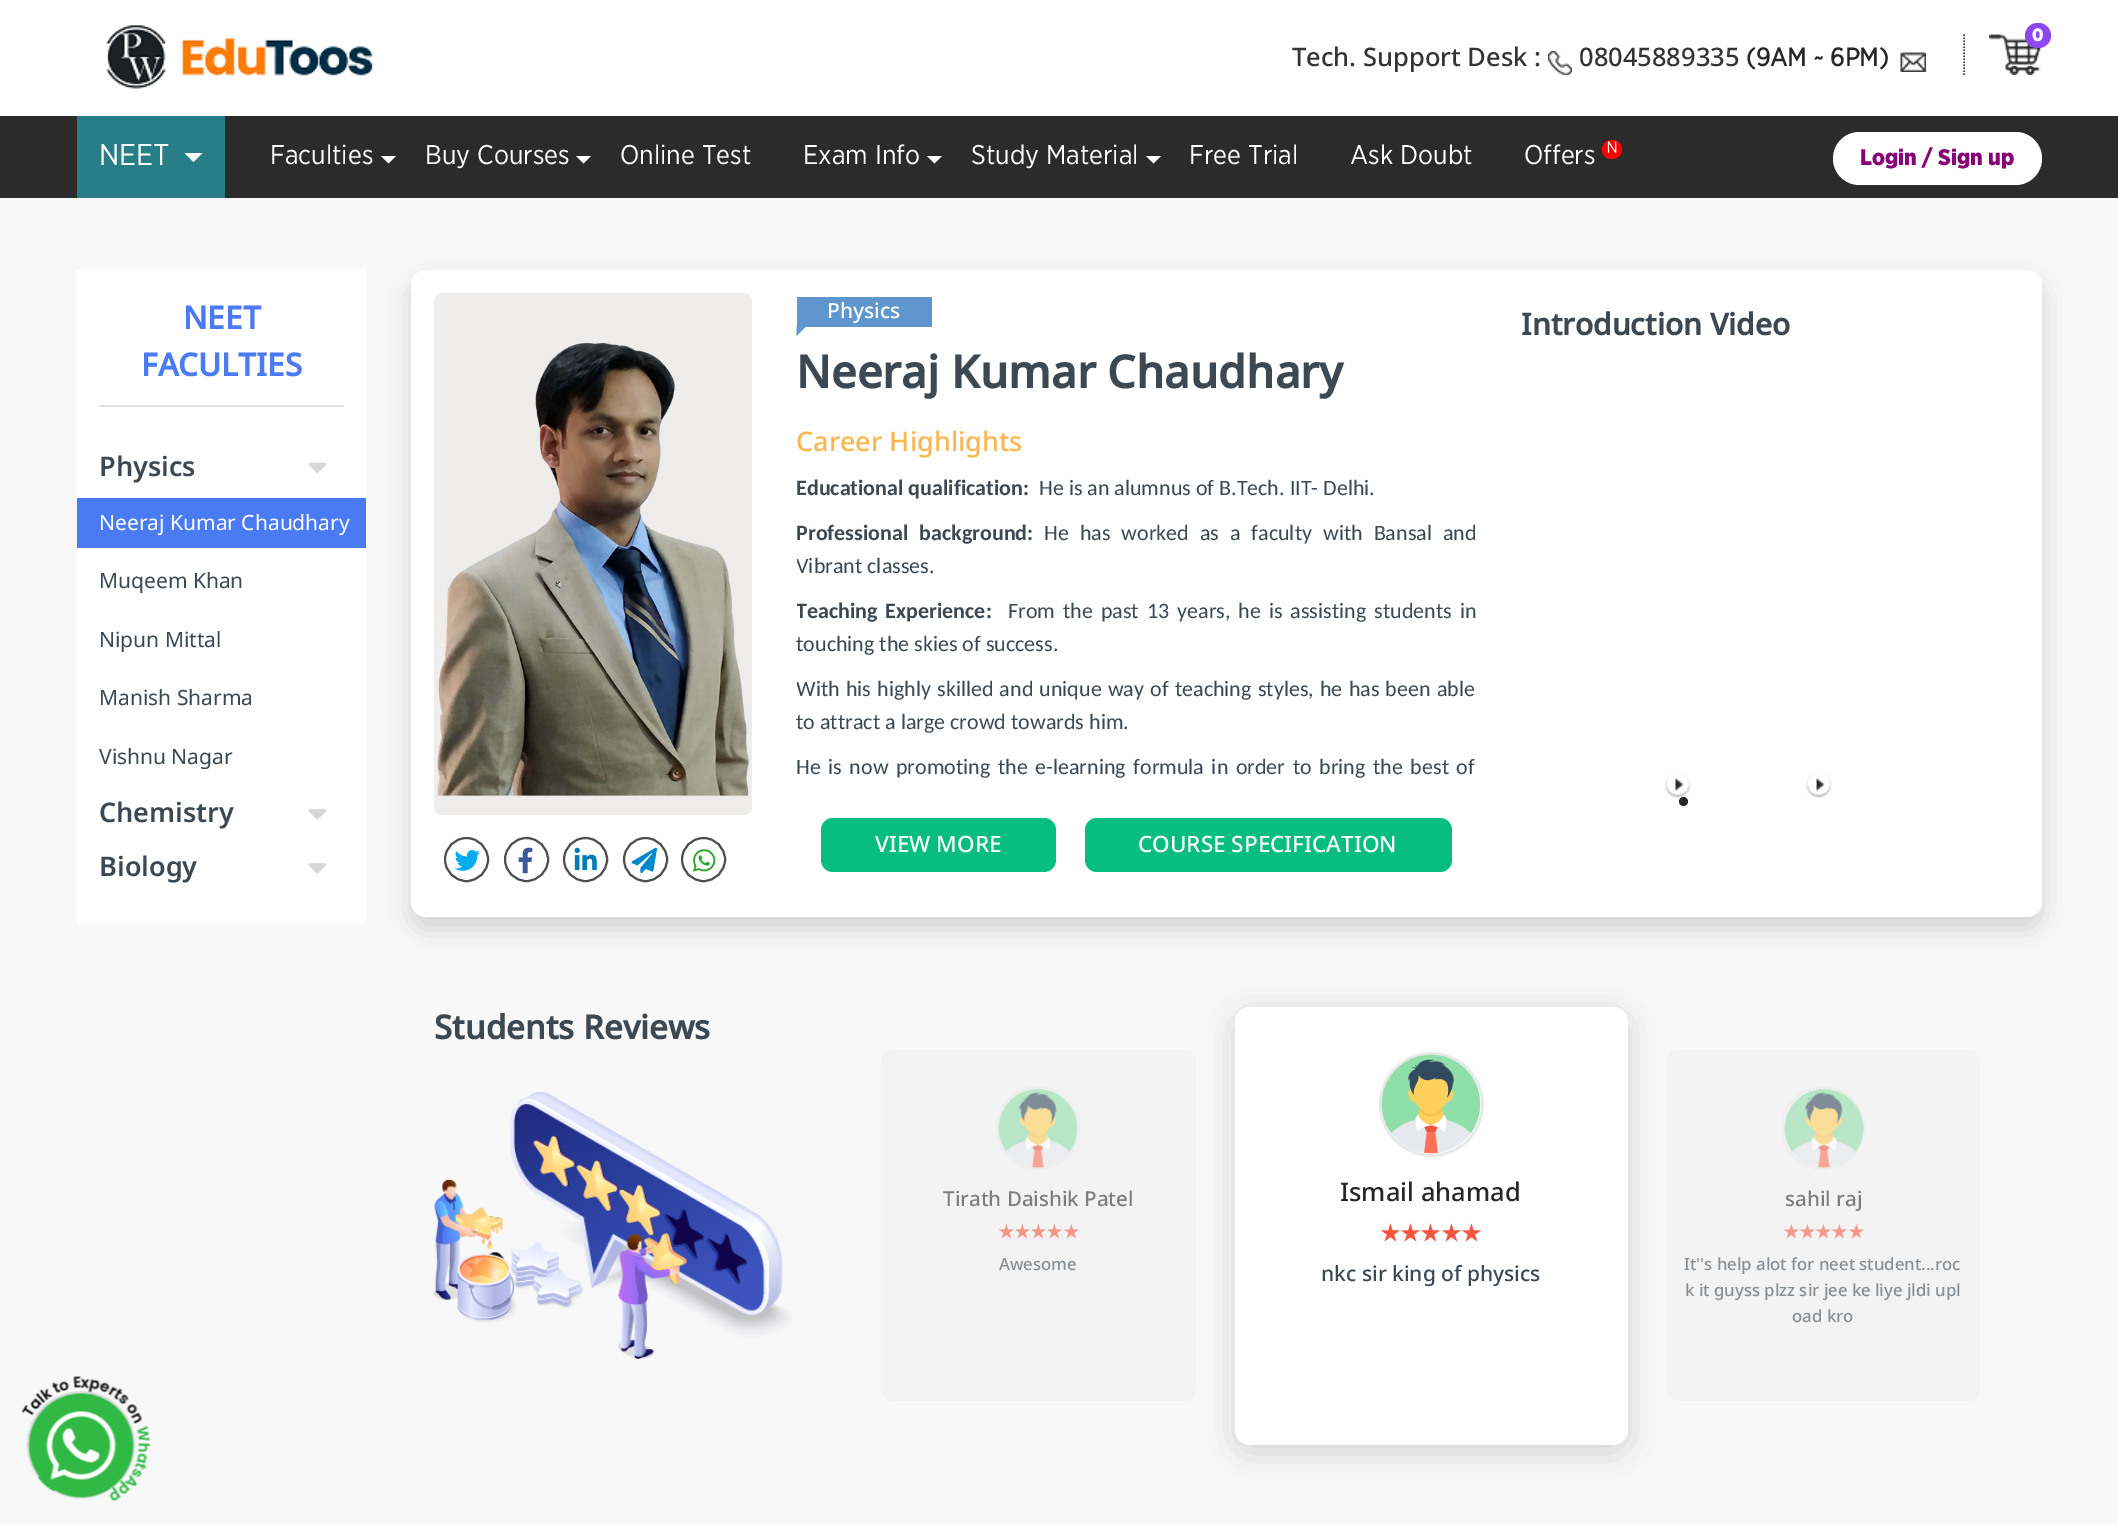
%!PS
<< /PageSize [2118 1524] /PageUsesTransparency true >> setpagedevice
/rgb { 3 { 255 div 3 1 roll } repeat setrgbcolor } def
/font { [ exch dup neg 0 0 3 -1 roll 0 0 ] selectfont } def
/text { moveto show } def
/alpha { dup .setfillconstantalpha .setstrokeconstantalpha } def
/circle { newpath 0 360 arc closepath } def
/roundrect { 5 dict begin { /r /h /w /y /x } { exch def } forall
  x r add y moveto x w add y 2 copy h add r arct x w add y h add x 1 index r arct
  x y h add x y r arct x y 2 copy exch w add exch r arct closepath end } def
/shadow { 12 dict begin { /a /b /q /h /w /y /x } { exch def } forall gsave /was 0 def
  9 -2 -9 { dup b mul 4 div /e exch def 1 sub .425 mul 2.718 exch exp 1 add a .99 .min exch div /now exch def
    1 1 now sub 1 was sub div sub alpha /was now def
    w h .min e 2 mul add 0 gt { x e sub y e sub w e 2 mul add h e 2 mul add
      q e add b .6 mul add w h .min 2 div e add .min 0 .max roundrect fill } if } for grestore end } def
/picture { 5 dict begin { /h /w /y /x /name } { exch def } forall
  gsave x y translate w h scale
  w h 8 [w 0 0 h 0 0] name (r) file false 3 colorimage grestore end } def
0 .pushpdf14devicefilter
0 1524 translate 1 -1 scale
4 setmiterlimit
255 255 255 rgb
0 0 2118 1524 rectfill
(img_01.rgb) 106 24 267 65 picture
47 47 47 rgb
1.5 setlinewidth
[1.5 1.5] 0 setdash
1964 34.5 moveto 0 40.5 rlineto stroke
(img_02.rgb) 1989 34 53 41 picture
140 72 245 rgb
2025 23 26 25 12.5 roundrect fill
(img_03.rgb) 1548 51 24 24 picture
(img_04.rgb) 1900 52 26 20 picture
43 43 43 rgb
0 116 2118 82 rectfill
40 126 135 rgb
77 116 148 82 rectfill
255 255 255 rgb
184.5 153 moveto 18 0 rlineto -9 9 rlineto closepath fill
381 156 moveto 15 0 rlineto -7.5 7.5 rlineto closepath fill
576 156 moveto 15 0 rlineto -7.5 7.5 rlineto closepath fill
927 156 moveto 15 0 rlineto -7.5 7.5 rlineto closepath fill
1146 156 moveto 15 0 rlineto -7.5 7.5 rlineto closepath fill
255 0 0 rgb
1602 140 20 19 9.5 roundrect fill
(img_05.rgb) 1607 141 10 12 picture
255 255 255 rgb
1833 132 209 53 26.5 roundrect fill
248 248 248 rgb
0 198 2118 1326 rectfill
255 255 255 rgb
77 270 289 653 rectfill
225 225 225 rgb
99 405 245 2 rectfill
(img_06.rgb) 308 462 18 11 picture
74 122 244 rgb
77 498 289 50 rectfill
(img_07.rgb) 308 809 18 11 picture
(img_07.rgb) 308 863 18 11 picture
0 0 0 rgb
411 282 1631 647 15 12 0.15 shadow
255 255 255 rgb
411 270 1631 647 15 roundrect fill
239 237 236 rgb
434 293 318 522 8 roundrect fill
(img_08.rgb) 437 343 312 453 picture
78 78 78 rgb
2 setlinewidth
[] 0 setdash
466.5 859.5 21.5 circle stroke
(img_09.rgb) 454 850 26 21 picture
526.5 859.5 21.5 circle stroke
(img_10.rgb) 518 847 15 27 picture
585.5 859.5 21.5 circle stroke
(img_11.rgb) 574 847 23 23 picture
645.5 859.5 21.5 circle stroke
(img_12.rgb) 631 847 26 27 picture
703.5 859.5 21.5 circle stroke
(img_13.rgb) 693 849 23 23 picture
95 150 206 rgb
797 297 135 30 rectfill
796.5 327 moveto 9 0 rlineto -9 9 rlineto closepath fill
8 189 128 rgb
821 818 235 54 12 roundrect fill
1085 818 367 54 12 roundrect fill
(img_14.rgb) 1665 773 26 25 picture
(img_15.rgb) 1806 773 26 25 picture
39 39 39 rgb
1683.5 801.5 4.5 circle fill
(img_16.rgb) 433 1092 359 267 picture
243 243 243 rgb
881 1050 315 351 12 roundrect fill
238 238 238 rgb
1038 1128 41 circle stroke
(img_17.rgb) 998 1088 80 81 picture
0 0 0 rgb
1235 1014 393 438 15 16 0.15 shadow
255 255 255 rgb
1235 1007 393 438 15 roundrect fill
232 232 232 rgb
3 setlinewidth
1431.5 1104.5 51 circle stroke
(img_18.rgb) 1381 1054 100 100 picture
243 243 243 rgb
1667 1050 313 351 12 roundrect fill
238 238 238 rgb
2 setlinewidth
1823 1128 41 circle stroke
(img_19.rgb) 1784 1088 80 81 picture
(img_20.rgb) 22 1376 128 125 picture
/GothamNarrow-Black 18 font
255 255 255 rgb
(0) 2032 41 text
/NotoSans-Medium 25.5 font
52 52 52 rgb
(Tech. Support Desk :) 1292 66 text
(08045889335) 1579 66 text
/GothamNarrow-Bold 25.5 font
39 39 39 rgb
(\(9AM ~ 6PM\)) 1746 66 text
/GothamNarrow-Regular 30 font
255 255 255 rgb
(NEET) 99 165 text
/GothamNarrow-Regular 27 font
(Faculties) 270 164 text
(Buy Courses) 425 164 text
(Online Test) 620 164 text
(Exam Info) 803 164 text
(Study Material) 971 164 text
(Free Trial) 1189 164 text
(Ask Doubt) 1350 164 text
(Offers) 1524 164 text
/GothamNarrow-Black 22.5 font
135 1 119 rgb
(Login / Sign up) 1860 165 text
/NotoSans-Bold 31.5 font
74 122 244 rgb
(NEET) 183 329 text
(FACULTIES) 141 376 text
/NotoSans-SemiBold 27 font
60 72 82 rgb
(Physics) 99 476 text
/NotoSans-Regular 21 font
255 255 255 rgb
(Neeraj Kumar Chaudhary) 99 530 text
60 72 82 rgb
(Muqeem Khan) 99 588 text
(Nipun Mittal) 99 647 text
(Manish Sharma) 99 705 text
(Vishnu Nagar) 99 764 text
/NotoSans-SemiBold 27 font
(Chemistry) 99 822 text
(Biology) 99 876 text
/NotoSans-Medium 21 font
255 255 255 rgb
(Physics) 827 318 text
/NotoSans-Bold 45 font
60 72 82 rgb
(Neeraj Kumar Chaudhary) 796 388 text
/NotoSans-Medium 27 font
255 180 77 rgb
(Career Highlights) 796 451 text
/Carlito-Bold 22 font
60 72 82 rgb
(Educational qualification:) 796 495 text
/Carlito-Regular 22 font
(He is an alumnus of B.Tech. IIT- Delhi.) 1039 495 text
/Carlito-Bold 22 font
796 540 moveto 6 0 32 (Professional background:) widthshow
/Carlito-Regular 22 font
1044 540 moveto 6 0 32 (He has worked as a faculty with Bansal and) widthshow
gsave
797 471 679 323 rectclip
(Vibrant classes.) 796 573 text
/Carlito-Bold 22 font
796 618 moveto 3 0 32 (Teaching Experience:) widthshow
grestore
1008 618 moveto 3 0 32 (From the past 13 years, he is assisting students in) widthshow
(touching the skies of success.) 796 651 text
gsave
797 471 679 323 rectclip
796 696 moveto 1.25 0 32 (With his highly skilled and unique way of teaching styles, he has been able) widthshow
grestore
(to attract a large crowd towards him.) 796 729 text
796 774 moveto 2.6 0 32 (He is now promoting the e-learning formula in order to bring the best of) widthshow
/NotoSans-Medium 22.5 font
255 255 255 rgb
(VIEW MORE) 875 852 text
(COURSE SPECIFICATION) 1138 852 text
/NotoSans-Bold 30 font
60 72 82 rgb
(Introduction Video) 1521 335 text
/NotoSans-Bold 33 font
(Students Reviews) 434 1039 text
/NotoSans-Medium 20.5 font
125 125 125 rgb
(Tirath Daishik Patel) 943 1206 text
/DejaVuSans-Bold 18 font
247 151 136 rgb
(★★★★★) 998 1238 text
/NotoSans-Medium 16.75 font
135 142 148 rgb
(Awesome) 999 1270 text
/NotoSans-Medium 25.5 font
39 39 39 rgb
(Ismail ahamad) 1340 1201 text
/DejaVuSans-Bold 22.5 font
247 86 62 rgb
(★★★★★) 1380 1241 text
/NotoSans-Medium 21 font
60 72 82 rgb
(nkc sir king of physics) 1321 1281 text
/NotoSans-Medium 20.5 font
125 125 125 rgb
(sahil raj) 1785 1206 text
/DejaVuSans-Bold 18 font
247 151 136 rgb
(★★★★★) 1783 1238 text
/NotoSans-Medium 16.75 font
135 142 148 rgb
(It''s help alot for neet student...roc) 1684 1270 text
(k it guyss plzz sir jee ke liye jldi upl) 1685 1296 text
(oad kro) 1792 1322 text
.poppdf14devicefilter showpage
